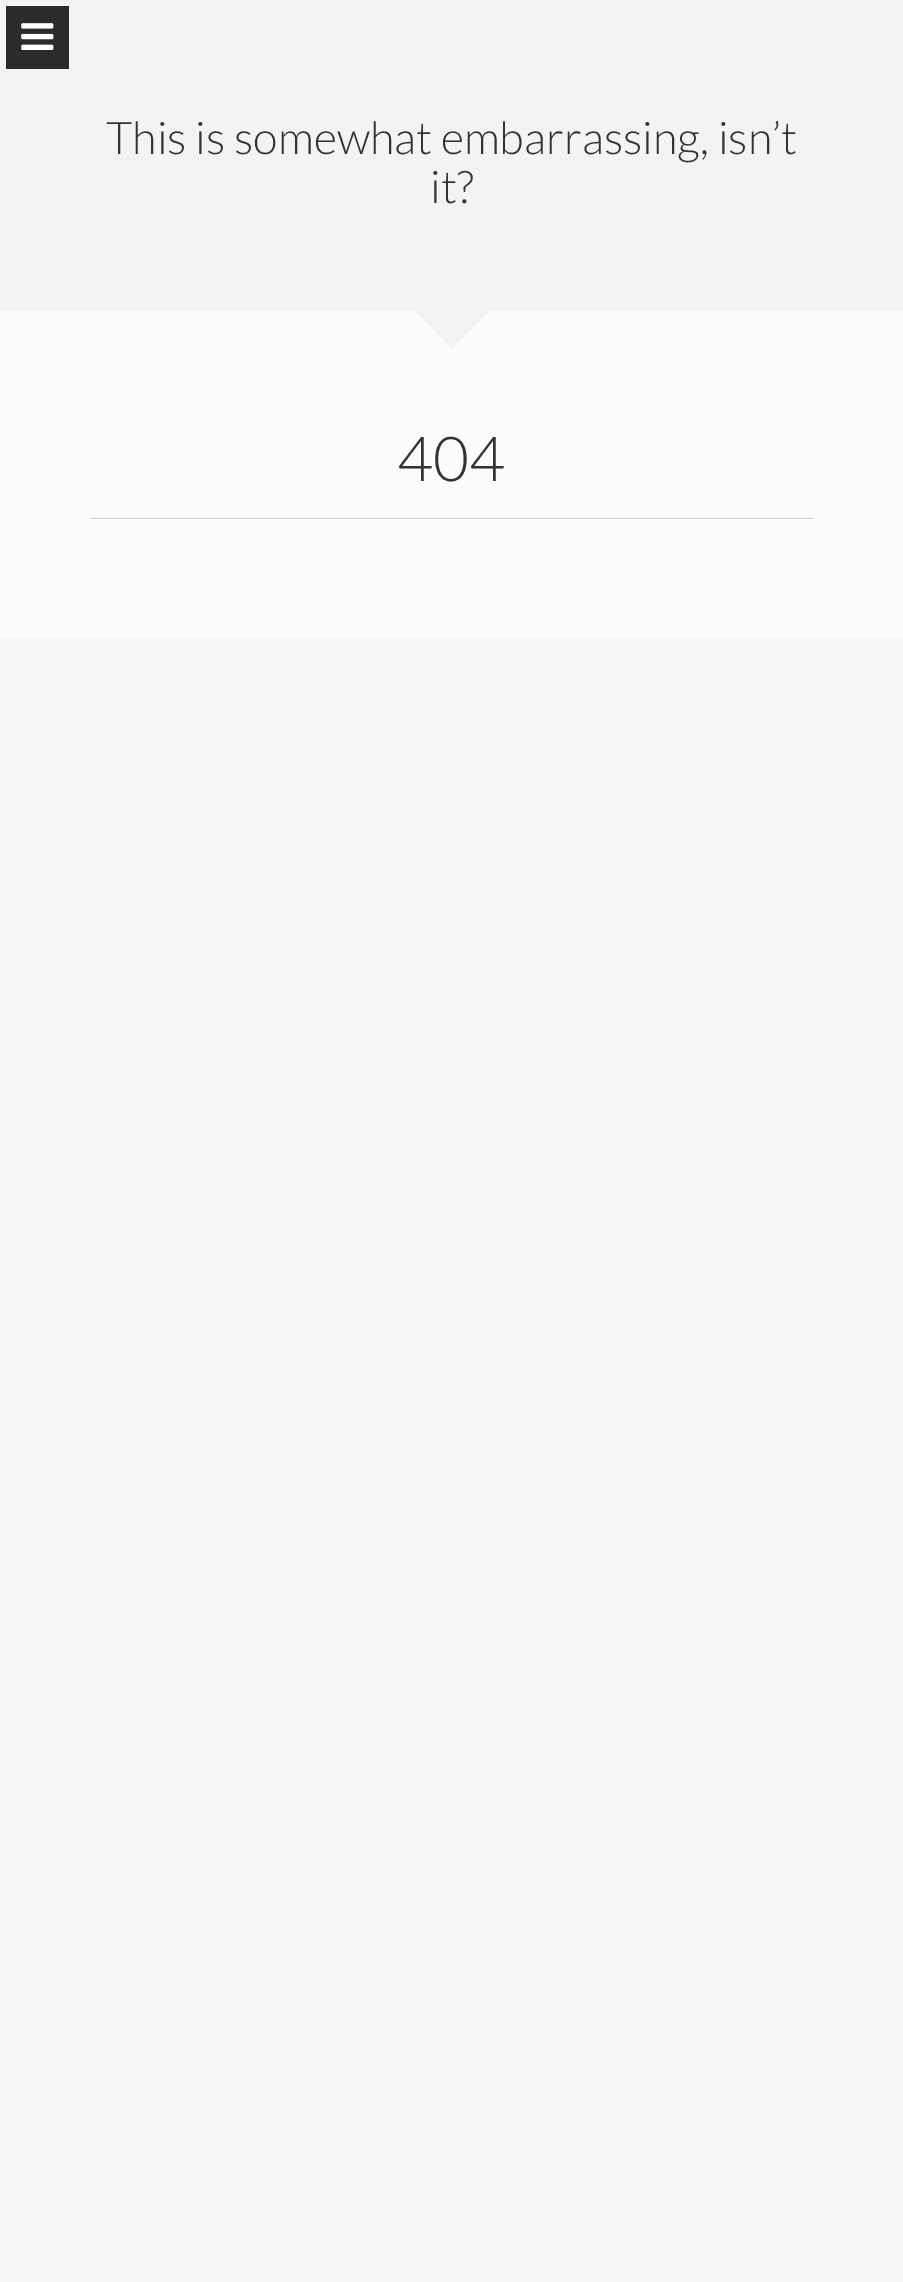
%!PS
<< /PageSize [903 2282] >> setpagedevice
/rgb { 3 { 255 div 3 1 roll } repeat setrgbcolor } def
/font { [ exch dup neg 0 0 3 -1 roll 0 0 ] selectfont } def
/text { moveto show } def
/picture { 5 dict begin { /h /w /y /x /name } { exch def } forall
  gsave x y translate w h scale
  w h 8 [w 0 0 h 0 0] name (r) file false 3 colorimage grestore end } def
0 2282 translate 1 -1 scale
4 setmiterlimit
247 247 247 rgb
0 0 903 2282 rectfill
243 243 243 rgb
0 0 903 311 rectfill
43 43 43 rgb
6 6 63 63 rectfill
(img_01.rgb) 21 23 33 27 picture
252 252 252 rgb
0 311 903 327 rectfill
243 243 243 rgb
415 311 moveto 75 0 rlineto -38 38 rlineto closepath fill
204 204 204 rgb
90 518 724 1 rectfill
/Lato-Light 45 font
51 51 51 rgb
(This is somewhat embarrassing, isn’t) 106 154 text
(it?) 430 203 text
/Lato-Light 62 font
(404) 397 481 text
showpage
